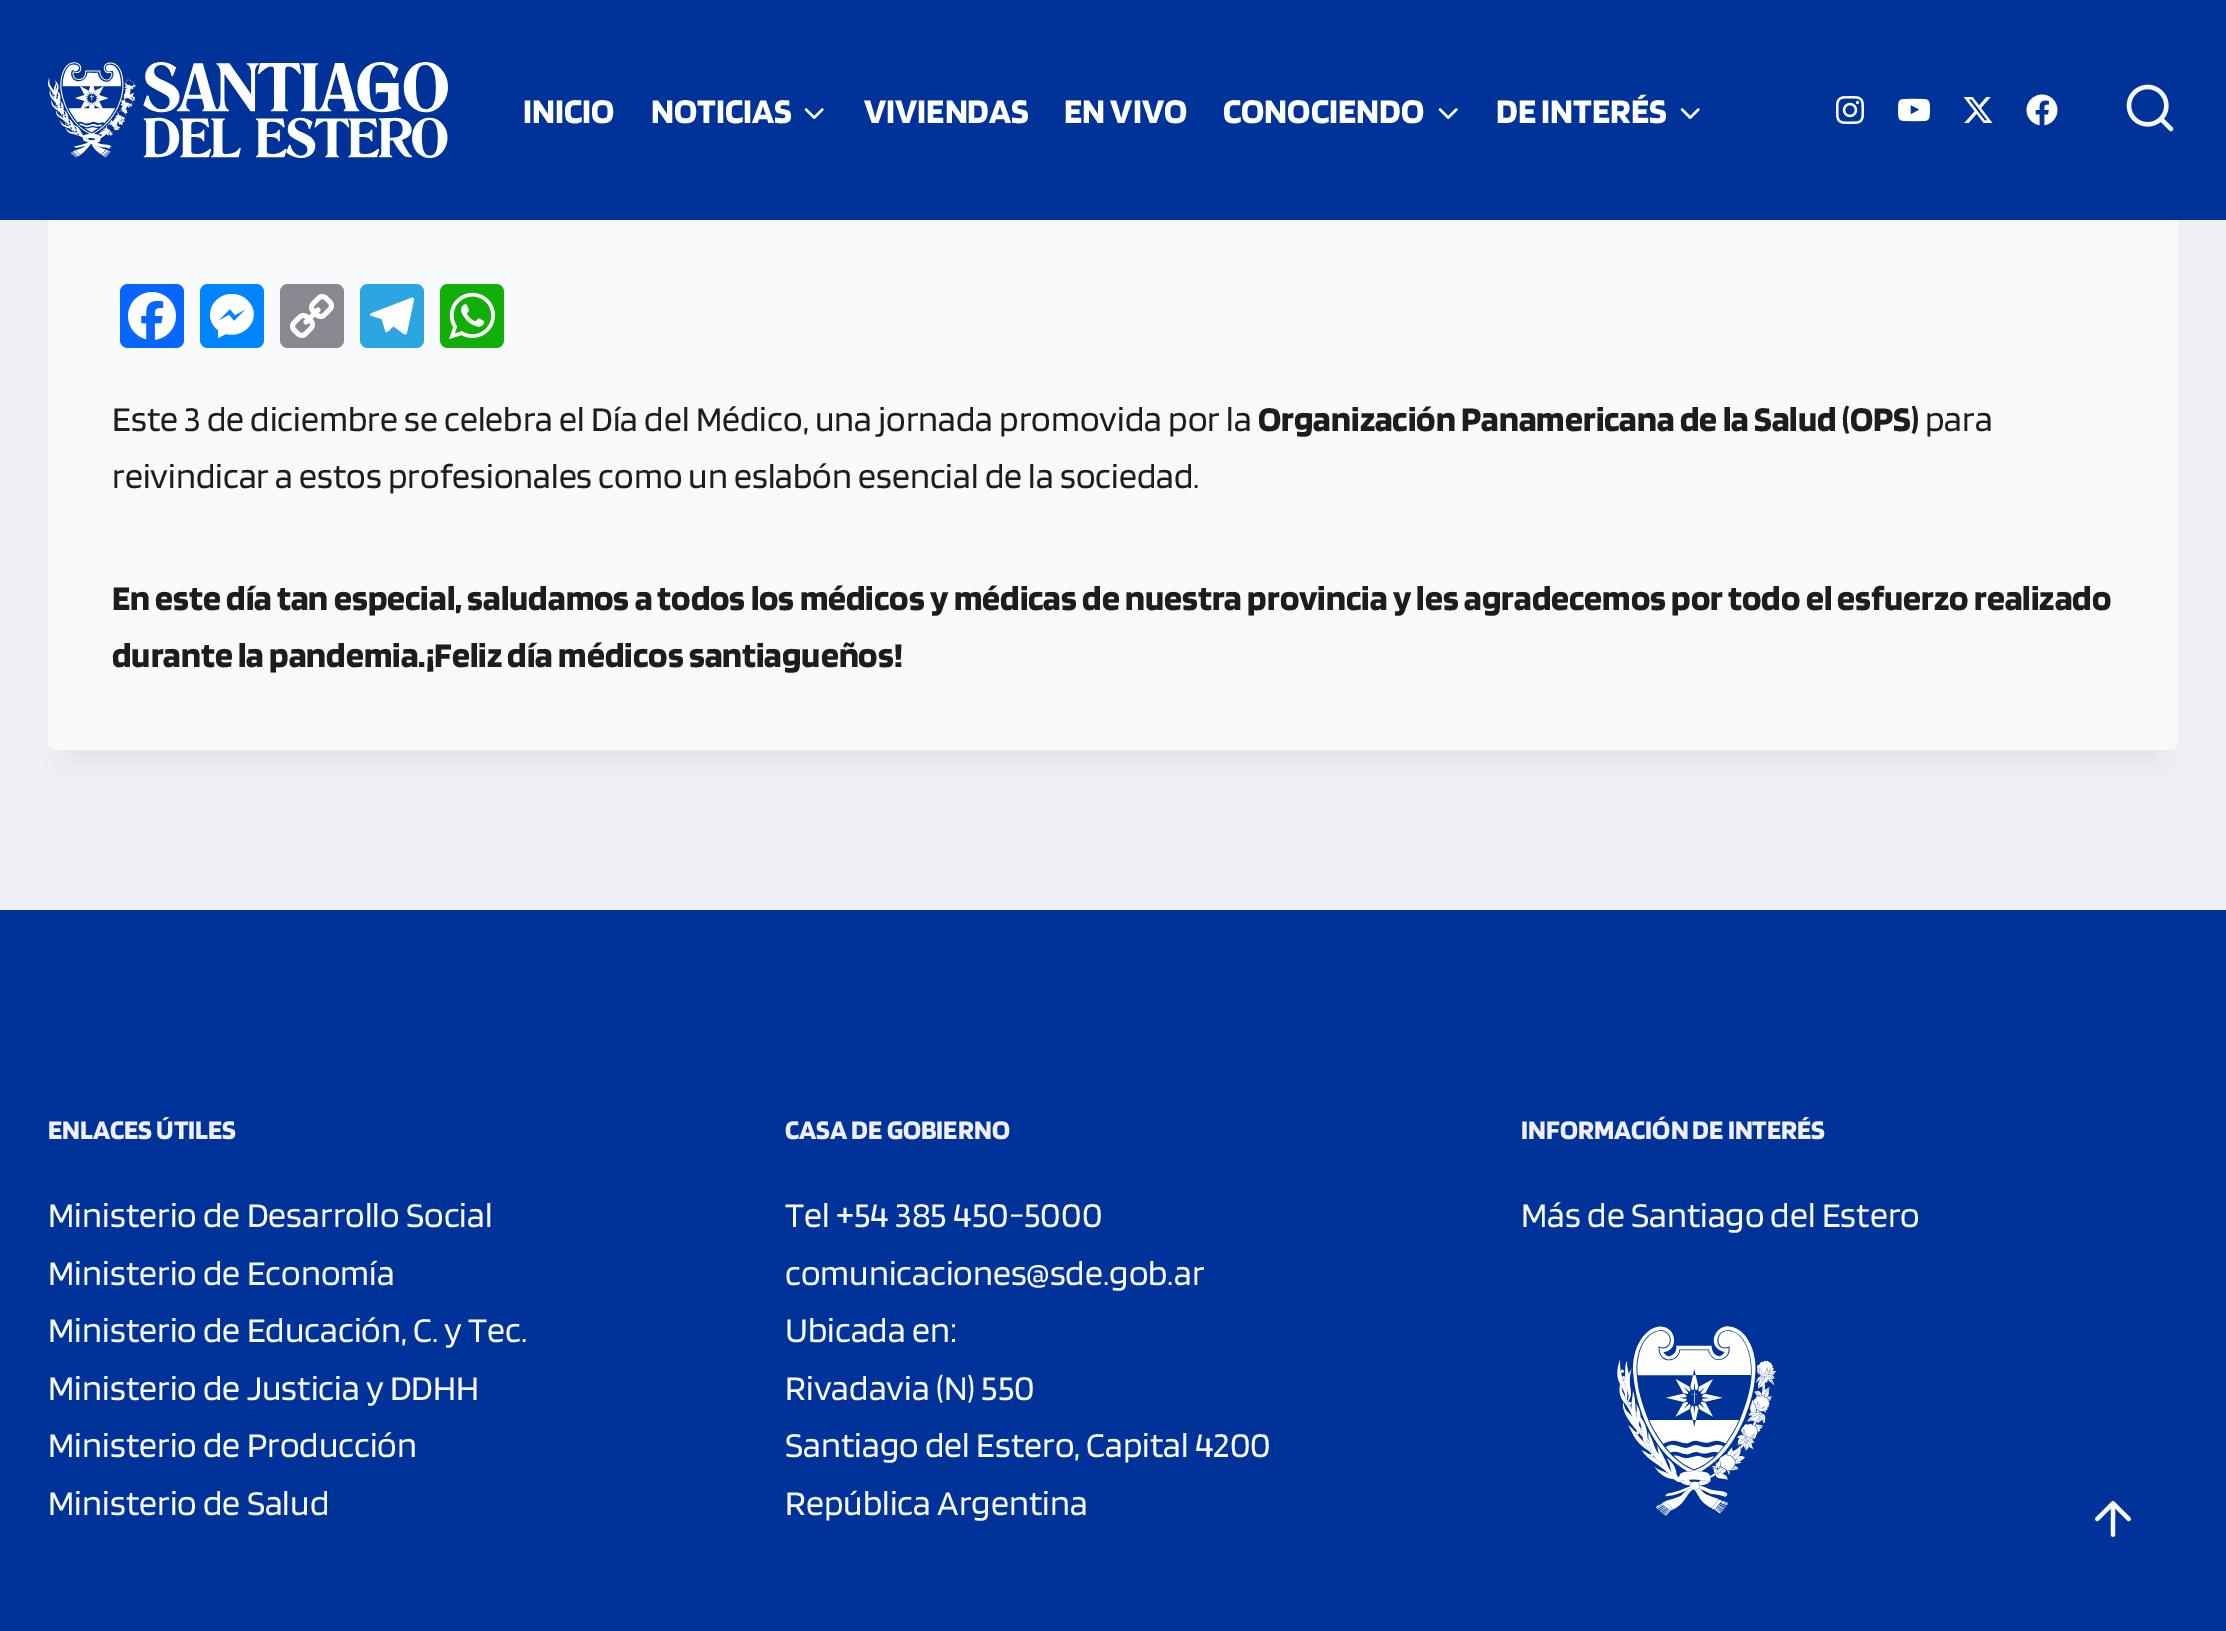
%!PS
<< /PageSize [2226 1631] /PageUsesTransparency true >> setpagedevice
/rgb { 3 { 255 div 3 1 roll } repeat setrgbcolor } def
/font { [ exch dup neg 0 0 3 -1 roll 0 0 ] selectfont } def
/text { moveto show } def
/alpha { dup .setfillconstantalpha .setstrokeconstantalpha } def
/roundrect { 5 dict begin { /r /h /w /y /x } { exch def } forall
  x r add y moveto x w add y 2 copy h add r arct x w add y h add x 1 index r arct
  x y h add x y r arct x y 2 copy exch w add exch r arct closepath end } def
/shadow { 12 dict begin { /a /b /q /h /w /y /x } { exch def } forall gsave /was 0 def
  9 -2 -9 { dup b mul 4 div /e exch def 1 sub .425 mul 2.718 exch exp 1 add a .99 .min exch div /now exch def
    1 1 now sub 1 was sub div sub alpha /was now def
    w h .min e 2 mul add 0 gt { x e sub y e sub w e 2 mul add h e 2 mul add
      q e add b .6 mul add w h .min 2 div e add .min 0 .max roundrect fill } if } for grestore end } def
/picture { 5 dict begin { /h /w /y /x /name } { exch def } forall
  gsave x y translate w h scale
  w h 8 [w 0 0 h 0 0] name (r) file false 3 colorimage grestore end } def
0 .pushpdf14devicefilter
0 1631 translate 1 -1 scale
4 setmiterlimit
239 239 245 rgb
0 0 2226 1631 rectfill
0 0 0 rgb
68 -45 2090 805 0 15 0.05 shadow
248 249 250 rgb
48 -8 2130 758 8 roundrect fill
0 51 153 rgb
0 0 2226 220 rectfill
(img_01.rgb) 48 62 400 96 picture
(img_02.rgb) 804 108 20 11 picture
(img_02.rgb) 1438 108 20 11 picture
(img_02.rgb) 1680 108 20 11 picture
(img_03.rgb) 1836 96 28 28 picture
(img_04.rgb) 1898 98 32 24 picture
(img_05.rgb) 1963 97 30 26 picture
(img_06.rgb) 2026 94 32 32 picture
(img_07.rgb) 2126 84 48 48 picture
8 102 255 rgb
120 284 64 64 8 roundrect fill
(img_08.rgb) 128 292 48 48 picture
0 132 255 rgb
200 284 64 64 8 roundrect fill
255 255 255 rgb
232 294 moveto -20 0 -30 24 -14 36 rcurveto 0 8 rlineto 8 -4 rlineto 20 5 38 -18 21 -34 rcurveto -4 -4 -9 -6 -15 -6 rcurveto 234 321 moveto -5 -6 rlineto -11 6 rlineto 12 -12 rlineto 5 6 rlineto 11 -6 rlineto closepath fill
136 137 144 rgb
280 284 64 64 8 roundrect fill
(img_09.rgb) 290 294 44 44 picture
44 165 224 rgb
360 284 64 64 8 roundrect fill
(img_10.rgb) 370 297 44 38 picture
18 175 10 rgb
440 284 64 64 8 roundrect fill
(img_11.rgb) 449 292 46 48 picture
0 51 153 rgb
0 910 2226 721 rectfill
(img_12.rgb) 1617 1326 160 190 picture
(img_13.rgb) 2095 1501 36 36 picture
/Blinker-Bold 36 font
255 255 255 rgb
(INICIO) 523 123 text
(NOTICIAS) 651 123 text
(VIVIENDAS) 864 123 text
(EN VIVO) 1064 123 text
(CONOCIENDO) 1223 123 text
(DE INTERÉS) 1496 123 text
/Blinker-Regular 36 font
29 29 27 rgb
(Este 3 de diciembre se celebra el Día del Médico, una jornada promovida por la) 112 431 text
/Blinker-Bold 36 font
(Organización Panamericana de la Salud \(OPS\)) 1258 431 text
/Blinker-Regular 36 font
(para) 1925 431 text
(reivindicar a estos profesionales como un eslabón esencial de la sociedad.) 112 488 text
/Blinker-Bold 36 font
(En este día tan especial, saludamos a todos los médicos y médicas de nuestra provincia y les agradecemos por todo el esfuerzo realizado) 112 610 text
(durante la pandemia.¡Feliz día médicos santiagueños!) 112 667 text
/Blinker-Bold 28 font
239 239 245 rgb
(ENLACES ÚTILES) 48 1139 text
/Blinker-Regular 36 font
248 249 250 rgb
(Ministerio de Desarrollo Social) 48 1227 text
(Ministerio de Economía) 48 1285 text
(Ministerio de Educación, C. y Tec.) 48 1342 text
(Ministerio de Justicia y DDHH) 48 1400 text
(Ministerio de Producción) 48 1457 text
(Ministerio de Salud) 48 1515 text
/Blinker-Bold 28 font
239 239 245 rgb
(CASA DE GOBIERNO) 785 1139 text
/Blinker-Regular 36 font
248 249 250 rgb
(Tel +54 385 450-5000) 785 1227 text
(comunicaciones@sde.gob.ar) 785 1285 text
(Ubicada en:) 785 1342 text
(Rivadavia \(N\) 550) 785 1400 text
(Santiago del Estero, Capital 4200) 785 1457 text
(República Argentina) 785 1515 text
/Blinker-Bold 28 font
239 239 245 rgb
(INFORMACIÓN DE INTERÉS) 1521 1139 text
/Blinker-Regular 36 font
248 249 250 rgb
(Más de Santiago del Estero) 1521 1227 text
.poppdf14devicefilter showpage
